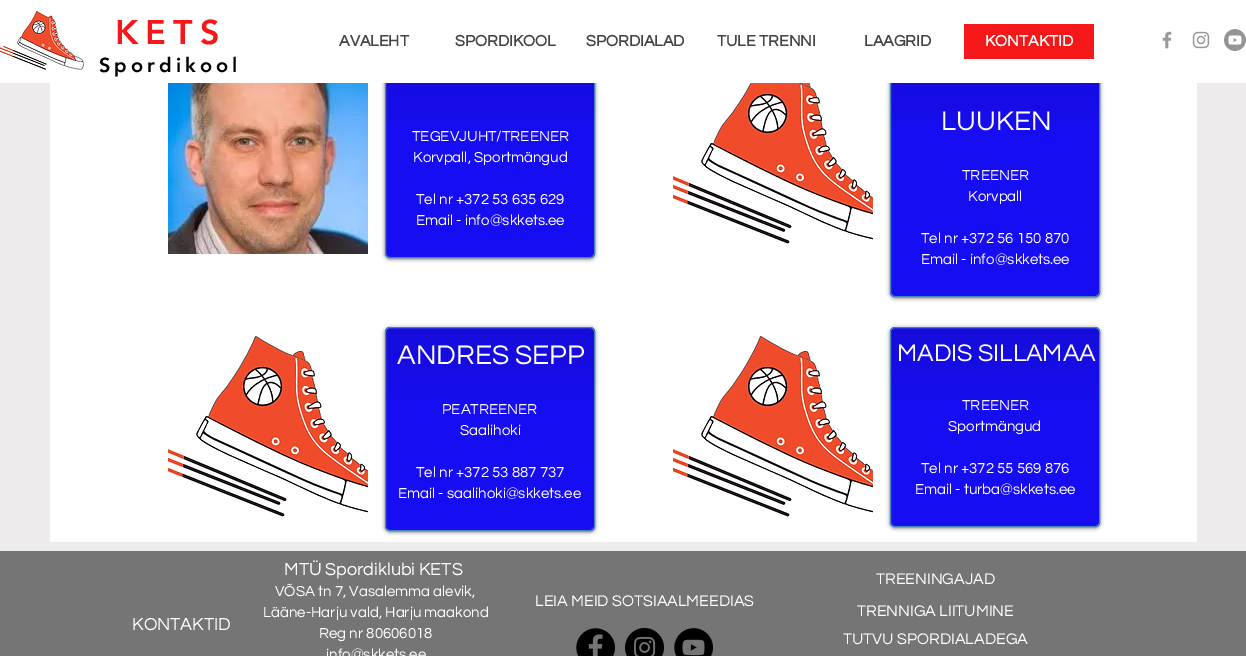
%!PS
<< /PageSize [1246 656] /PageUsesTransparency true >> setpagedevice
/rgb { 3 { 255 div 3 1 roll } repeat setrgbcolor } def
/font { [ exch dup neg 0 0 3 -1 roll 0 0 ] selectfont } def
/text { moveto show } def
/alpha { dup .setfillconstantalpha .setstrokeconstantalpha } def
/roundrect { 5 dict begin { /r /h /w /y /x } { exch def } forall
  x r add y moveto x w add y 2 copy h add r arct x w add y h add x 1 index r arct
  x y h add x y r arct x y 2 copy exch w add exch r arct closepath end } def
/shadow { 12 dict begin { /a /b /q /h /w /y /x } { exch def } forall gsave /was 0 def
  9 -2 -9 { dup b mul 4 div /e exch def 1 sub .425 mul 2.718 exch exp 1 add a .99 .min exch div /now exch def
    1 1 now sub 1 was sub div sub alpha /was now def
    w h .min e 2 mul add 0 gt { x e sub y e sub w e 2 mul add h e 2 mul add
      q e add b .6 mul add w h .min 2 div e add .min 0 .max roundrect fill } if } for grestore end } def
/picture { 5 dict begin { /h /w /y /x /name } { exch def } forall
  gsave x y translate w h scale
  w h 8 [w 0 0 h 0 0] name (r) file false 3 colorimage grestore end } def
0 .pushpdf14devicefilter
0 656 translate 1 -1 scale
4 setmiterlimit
237 235 235 rgb
0 0 1246 656 rectfill
255 255 255 rgb
50 83 1147 459 rectfill
0 0 0 rgb
385 55 210 204 5 2 0.6 shadow
23 13 242 rgb
385 54 210 204 5 roundrect fill
(img_06.rgb) 386 83 208 43 picture
70 130 180 rgb
385.5 54.5 209 203 4.5 roundrect stroke
0 0 0 rgb
890 55 210 243 5 2 0.6 shadow
23 13 242 rgb
890 54 210 243 5 roundrect fill
(img_06.rgb) 891 83 208 43 picture
70 130 180 rgb
890.5 54.5 209 242 4.5 roundrect stroke
255 255 255 rgb
0 0 1246 83 rectfill
(img_01.rgb) 0 10 84 60 picture
246 24 24 rgb
964 24 130 35 rectfill
(img_02.rgb) 1162 31 10 18 picture
(img_03.rgb) 1192 31 18 18 picture
(img_04.rgb) 1224 29 22 22 picture
(img_05.rgb) 168 83 200 171 picture
(img_07.rgb) 673 83 200 161 picture
(img_08.rgb) 168 335 200 182 picture
0 0 0 rgb
385 328 210 204 5 2 0.6 shadow
23 13 242 rgb
385 327 210 204 5 roundrect fill
(img_09.rgb) 385 330 210 69 picture
70 130 180 rgb
385.5 327.5 209 203 4.5 roundrect stroke
(img_08.rgb) 673 335 200 182 picture
0 0 0 rgb
890 328 210 200 5 2 0.6 shadow
23 13 242 rgb
890 327 210 200 5 roundrect fill
(img_09.rgb) 890 330 210 69 picture
70 130 180 rgb
890.5 327.5 209 199 4.5 roundrect stroke
117 117 117 rgb
0 551 1246 105 rectfill
(img_10.rgb) 576 628 39 28 picture
(img_11.rgb) 625 628 39 28 picture
(img_12.rgb) 674 628 39 28 picture
/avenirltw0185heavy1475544-Black 34 font
246 24 24 rgb
115 44 moveto 7 0 (KETS) ashow
/Questrial-Bold 16 font
68 68 68 rgb
(AVALEHT) 339 46 text
(SPORDIKOOL) 455 46 text
(SPORDIALAD) 586 46 text
(TULE TRENNI) 717 46 text
(LAAGRID) 864 46 text
255 255 255 rgb
(KONTAKTID) 985 46 text
/avenirltw0185heavy1475544-Black 20 font
0 0 0 rgb
99 72 moveto 4 0 (Spordikool) ashow
/Questrial-Regular 15 font
255 255 255 rgb
(TEGEVJUHT/TREENER) 412 141 text
(Korvpall, Sportmängud) 413 162 text
(Tel nr +372 53 635 629) 416 204 text
(Email - info@skkets.ee) 416 225 text
/Questrial-Regular 28 font
(LUUKEN) 941 130 text
/Questrial-Regular 15 font
(TREENER) 962 180 text
(Korvpall) 968 201 text
(Tel nr +372 56 150 870) 921 243 text
(Email - info@skkets.ee) 921 264 text
/Questrial-Regular 28 font
(ANDRES SEPP) 397 364 text
/Questrial-Regular 15 font
(PEATREENER) 442 414 text
(Saalihoki) 460 435 text
(Tel nr +372 53 887 737) 416 477 text
(Email - saalihoki@skkets.ee) 398 498 text
/Questrial-Regular 25 font
(MADIS SILLAMAA) 897 361 text
/Questrial-Regular 15 font
(TREENER) 962 410 text
(Sportmängud) 948 431 text
(Tel nr +372 55 569 876) 921 473 text
(Email - turba@skkets.ee) 915 494 text
/Questrial-Regular 18 font
(MTÜ Spordiklubi KETS) 284 575 text
/Questrial-Regular 15 font
(VÕSA tn 7, Vasalemma alevik,) 275 596 text
(Lääne-Harju vald, Harju maakond) 263 617 text
(Reg nr 80606018) 319 638 text
(info@skkets.ee) 326 659 text
/Questrial-Regular 16 font
(TREENINGAJAD) 876 584 text
(LEIA MEID SOTSIAALMEEDIAS) 535 606 text
(TRENNIGA LIITUMINE) 857 616 text
/Questrial-Regular 18 font
(KONTAKTID) 132 630 text
/Questrial-Regular 16 font
(TUTVU SPORDIALADEGA) 843 644 text
.poppdf14devicefilter showpage
